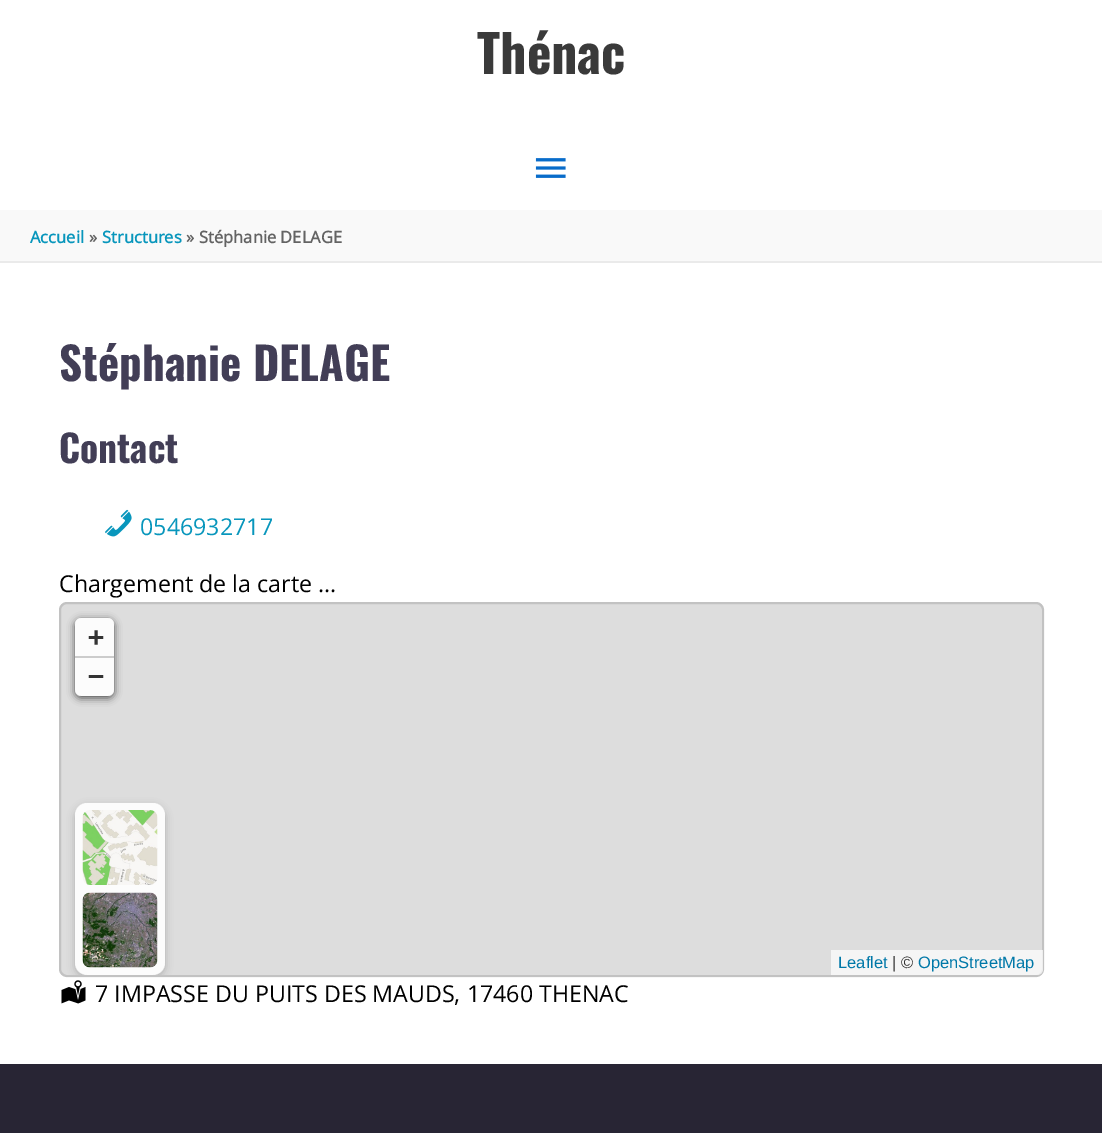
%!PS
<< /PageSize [1102 1133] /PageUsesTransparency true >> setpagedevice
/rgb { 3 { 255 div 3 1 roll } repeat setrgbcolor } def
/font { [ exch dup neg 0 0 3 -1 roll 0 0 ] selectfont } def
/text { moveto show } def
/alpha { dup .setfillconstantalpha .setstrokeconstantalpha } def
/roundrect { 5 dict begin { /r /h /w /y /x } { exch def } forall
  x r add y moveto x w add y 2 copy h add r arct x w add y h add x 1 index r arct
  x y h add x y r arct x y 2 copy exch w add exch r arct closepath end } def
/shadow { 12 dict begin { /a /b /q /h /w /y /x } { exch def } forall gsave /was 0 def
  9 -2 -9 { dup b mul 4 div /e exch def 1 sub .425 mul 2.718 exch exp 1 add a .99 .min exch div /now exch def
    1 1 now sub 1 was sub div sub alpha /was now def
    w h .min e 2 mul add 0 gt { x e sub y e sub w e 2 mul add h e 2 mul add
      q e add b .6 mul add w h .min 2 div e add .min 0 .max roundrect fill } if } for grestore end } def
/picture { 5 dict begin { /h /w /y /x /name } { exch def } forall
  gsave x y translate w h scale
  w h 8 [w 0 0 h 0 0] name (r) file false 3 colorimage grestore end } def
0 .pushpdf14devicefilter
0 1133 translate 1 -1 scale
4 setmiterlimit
255 255 255 rgb
0 0 1102 1133 rectfill
(img_01.rgb) 535 158 31 20 picture
249 249 249 rgb
0 210 1102 51 rectfill
234 234 234 rgb
0 261 1102 2 rectfill
(img_02.rgb) 105 509 27 28 picture
221 221 221 rgb
59 602 985 375 8 roundrect fill
0.12 alpha
0 0 0 rgb
2 setlinewidth
60 603 983 373 7 roundrect stroke
gsave
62 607 moveto 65 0 rlineto 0 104 rlineto -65 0 rlineto closepath 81 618 moveto 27 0 rlineto 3.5 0 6 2.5 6 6 rcurveto 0 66 rlineto 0 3.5 -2.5 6 -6 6 rcurveto -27 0 rlineto -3.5 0 -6 -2.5 -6 -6 rcurveto 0 -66 rlineto 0 -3.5 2.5 -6 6 -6 rcurveto closepath eoclip newpath
1 alpha
75 620 39 78 6 4 0.65 shadow
grestore
0.9 alpha
255 255 255 rgb
75 618 39 78 6 roundrect fill
1 alpha
204 204 204 rgb
75 656 39 2 rectfill
(img_05.rgb) 61 980 25 24 picture
gsave
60 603 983 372 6 roundrect clip newpath
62 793 moveto 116 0 rlineto 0 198 rlineto -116 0 rlineto closepath 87 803 moveto 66 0 rlineto 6.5 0 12 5.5 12 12 rcurveto 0 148 rlineto 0 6.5 -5.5 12 -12 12 rcurveto -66 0 rlineto -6.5 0 -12 -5.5 -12 -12 rcurveto 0 -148 rlineto 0 -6.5 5.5 -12 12 -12 rcurveto closepath eoclip newpath
0 0 0 rgb
75 806 90 172 12 4 0.2 shadow
grestore
0.9 alpha
255 255 255 rgb
75 803 90 172 12 roundrect fill
1 alpha
(img_03.rgb) 82 810 76 75 picture
(img_04.rgb) 82 892 76 76 picture
0.7 alpha
831 950 moveto 212 0 rlineto 0 19 rlineto 0 3.5 -2.5 6 -6 6 rcurveto -206 0 rlineto closepath fill
1 alpha
40 37 52 rgb
0 1064 1102 69 rectfill
/Oswald-Bold 52 font
58 58 58 rgb
(Thénac) 477 74 text
/OpenSans-Bold 16.5 font
8 150 188 rgb
(Accueil) 30 243 text
99 99 99 rgb
(») 89 243 text
8 150 188 rgb
(Structures) 102 243 text
99 99 99 rgb
(») 186 243 text
(Stéphanie DELAGE) 199 243 text
/Oswald-Bold 45 font
66 62 86 rgb
(Stéphanie DELAGE) 59 381 text
/Oswald-Bold 37.5 font
(Contact) 59 463 text
/OpenSans-Regular 23.25 font
8 150 188 rgb
(0546932717) 140 535 text
0 0 0 rgb
(Chargement de la carte ...) 59 592 text
/DejaVuSansMono-Bold 27 font
51 51 51 rgb
(+) 88 646 text
(−) 88 685 text
/LiberationSans-Regular 16.5 font
0 120 168 rgb
(Leaflet) 838 968 text
51 51 51 rgb
(| ©) 892 968 text
0 120 168 rgb
(OpenStreetMap) 918 968 text
/OpenSans-Regular 23.25 font
0 0 0 rgb
(7 IMPASSE DU PUITS DES MAUDS, 17460 THENAC) 95 1002 text
.poppdf14devicefilter showpage
